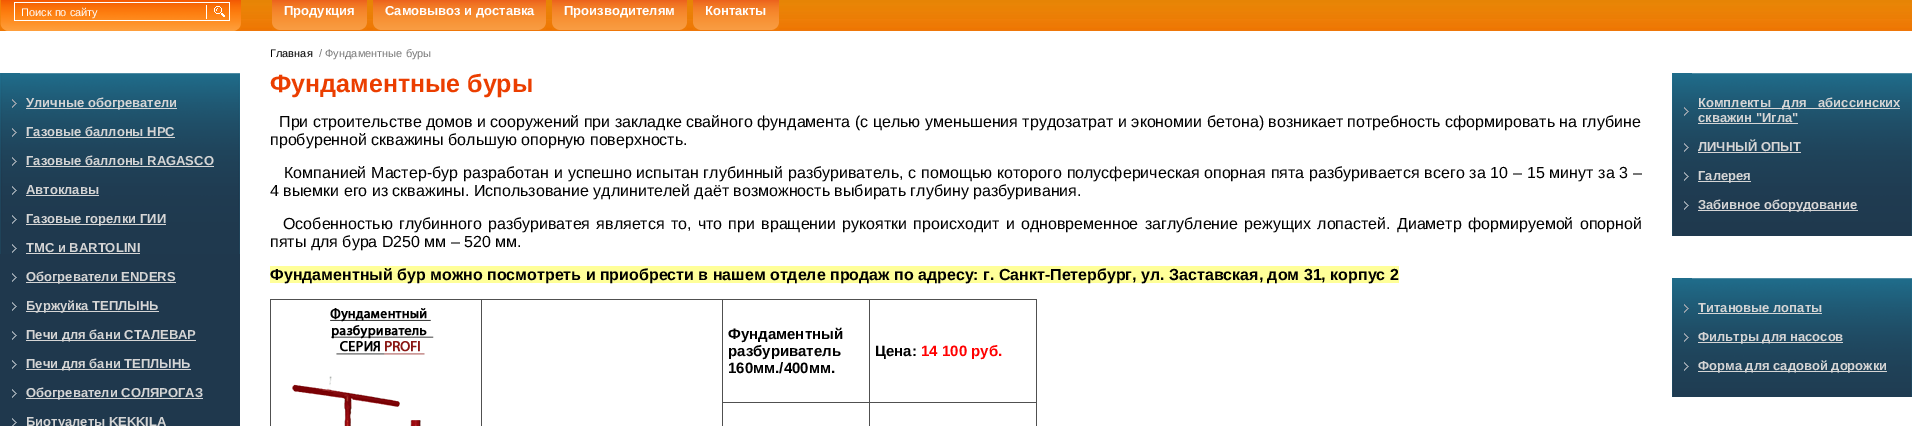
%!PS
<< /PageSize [1912 426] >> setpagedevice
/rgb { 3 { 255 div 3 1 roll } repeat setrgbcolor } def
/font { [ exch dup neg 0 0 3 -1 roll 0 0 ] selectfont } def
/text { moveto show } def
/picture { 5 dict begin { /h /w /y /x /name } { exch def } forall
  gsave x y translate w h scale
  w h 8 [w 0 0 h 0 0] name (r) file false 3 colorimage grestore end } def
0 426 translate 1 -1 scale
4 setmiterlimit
255 255 255 rgb
0 0 1912 426 rectfill
(img_01.rgb) 241 0 1671 31 picture
(img_02.rgb) 0 0 241 31 picture
(img_03.rgb) 272 0 95 30 picture
(img_04.rgb) 272 23 7 7 picture
(img_05.rgb) 360 23 7 7 picture
(img_06.rgb) 373 0 173 30 picture
(img_04.rgb) 373 23 7 7 picture
(img_05.rgb) 539 23 7 7 picture
(img_07.rgb) 552 0 135 30 picture
(img_04.rgb) 552 23 7 7 picture
(img_05.rgb) 680 23 7 7 picture
(img_08.rgb) 693 0 86 30 picture
(img_04.rgb) 693 23 7 7 picture
(img_05.rgb) 772 23 7 7 picture
31 56 77 rgb
0 254 240 172 rectfill
(img_09.rgb) 0 73 240 181 picture
(img_10.rgb) 12 99 5 9 picture
213 213 213 rgb
26 108 151 1 rectfill
(img_11.rgb) 12 128 5 9 picture
26 137 149 1 rectfill
(img_12.rgb) 12 157 5 9 picture
26 166 188 1 rectfill
(img_13.rgb) 12 186 5 9 picture
26 195 73 1 rectfill
(img_14.rgb) 12 215 5 9 picture
26 224 140 1 rectfill
(img_15.rgb) 12 244 5 9 picture
26 253 114 1 rectfill
(img_16.rgb) 12 273 5 9 picture
26 282 150 1 rectfill
(img_16.rgb) 12 302 5 9 picture
26 311 133 1 rectfill
(img_16.rgb) 12 331 5 9 picture
26 340 170 1 rectfill
(img_16.rgb) 12 360 5 9 picture
26 369 165 1 rectfill
(img_16.rgb) 12 389 5 9 picture
26 398 177 1 rectfill
(img_17.rgb) 12 418 5 8 picture
255 255 153 rgb
270 266 1129 17 rectfill
80 80 80 rgb
869 299 168 1 rectfill
869 402 168 1 rectfill
869 402 1 24 rectfill
722 402 148 1 rectfill
869 299 1 104 rectfill
722 299 148 1 rectfill
722 402 1 24 rectfill
722 299 1 104 rectfill
481 299 242 1 rectfill
481 299 1 127 rectfill
270 299 212 1 rectfill
270 299 1 127 rectfill
(img_18.rgb) 292 308 142 118 picture
1036 402 1 24 rectfill
1036 299 1 104 rectfill
(img_19.rgb) 1672 73 240 163 picture
(img_20.rgb) 1684 107 5 9 picture
213 213 213 rgb
1698 108 202 1 rectfill
1698 123 100 1 rectfill
(img_21.rgb) 1684 143 5 9 picture
1698 152 103 1 rectfill
(img_22.rgb) 1684 172 5 9 picture
1698 181 53 1 rectfill
(img_23.rgb) 1684 201 5 9 picture
1698 210 160 1 rectfill
(img_24.rgb) 1672 278 240 119 picture
(img_10.rgb) 1684 304 5 9 picture
1698 313 124 1 rectfill
(img_11.rgb) 1684 333 5 9 picture
1698 342 145 1 rectfill
(img_12.rgb) 1684 362 5 9 picture
1698 371 189 1 rectfill
/LiberationSans-Regular 11 font
255 255 255 rgb
(Поиск по сайту) 21 16 text
/LiberationSans-Bold 13 font
(Продукция) 284 15 text
(Самовывоз и доставка) 385 15 text
(Производителям) 564 15 text
(Контакты) 705 15 text
213 213 213 rgb
(Уличные обогреватели) 26 107 text
(Газовые баллоны HPC) 26 136 text
(Газовые баллоны RАGASCO) 26 165 text
(Автоклавы) 26 194 text
(Газовые горелки ГИИ) 26 223 text
(TMC и BARTOLINI) 26 252 text
(Обогреватели ENDERS) 26 281 text
(Буржуйка ТЕПЛЫНЬ) 26 310 text
(Печи для бани СТАЛЕВАР) 26 339 text
(Печи для бани ТЕПЛЫНЬ) 26 368 text
(Обогреватели СОЛЯРОГАЗ) 26 397 text
(Биотуалеты KEKKILA) 26 426 text
/LiberationSans-Regular 11 font
0 0 0 rgb
(Главная) 270 57 text
122 122 122 rgb
(/ Фундаментные буры) 319 57 text
/LiberationSans-Bold 25 font
235 62 0 rgb
(Фундаментные буры) 270 92 text
/LiberationSans-Regular 16 font
0 0 0 rgb
(При строительстве домов и сооружений при закладке свайного фундамента \(с целью уменьшения трудозатрат и экономии бетона\) возникает потребность сформировать на глубине) 279 127 text
(пробуренной скважины большую опорную поверхность.) 270 145 text
284 178 moveto 0.4 0 32 (Компанией Мастер-бур разработан и успешно испытан глубинный разбуриватель, с помощью которого полусферическая опорная пята разбуривается всего за 10 – 15 минут за 3 –) widthshow
(4 выемки его из скважины. Использование удлинителей даёт возможность выбирать глубину разбуривания.) 270 196 text
283 229 moveto 1.8 0 32 (Особенностью глубинного разбуриватея является то, что при вращении рукоятки происходит и одновременное заглубление режущих лопастей. Диаметр формируемой опорной) widthshow
(пяты для бура D250 мм – 520 мм.) 270 247 text
/LiberationSans-Bold 16 font
(Фундаментный бур можно посмотреть и приобрести в нашем отделе продаж по адресу: г. Санкт-Петербург, ул. Заставская, дом 31, корпус 2) 270 280 text
/LiberationSans-Bold 15 font
(Фундаментный) 728 339 text
(разбуриватель) 728 356 text
(160мм./400мм.) 728 373 text
(Цена:) 875 356 text
255 0 0 rgb
(14 100 руб.) 921 356 text
/LiberationSans-Bold 13 font
213 213 213 rgb
1698 107 moveto 8 0 32 (Комплекты для абиссинских) widthshow
(скважин "Игла") 1698 122 text
(ЛИЧНЫЙ ОПЫТ) 1698 151 text
(Галерея) 1698 180 text
(Забивное оборудование) 1698 209 text
(Титановые лопаты) 1698 312 text
(Фильтры для насосов) 1698 341 text
(Форма для садовой дорожки) 1698 370 text
showpage
